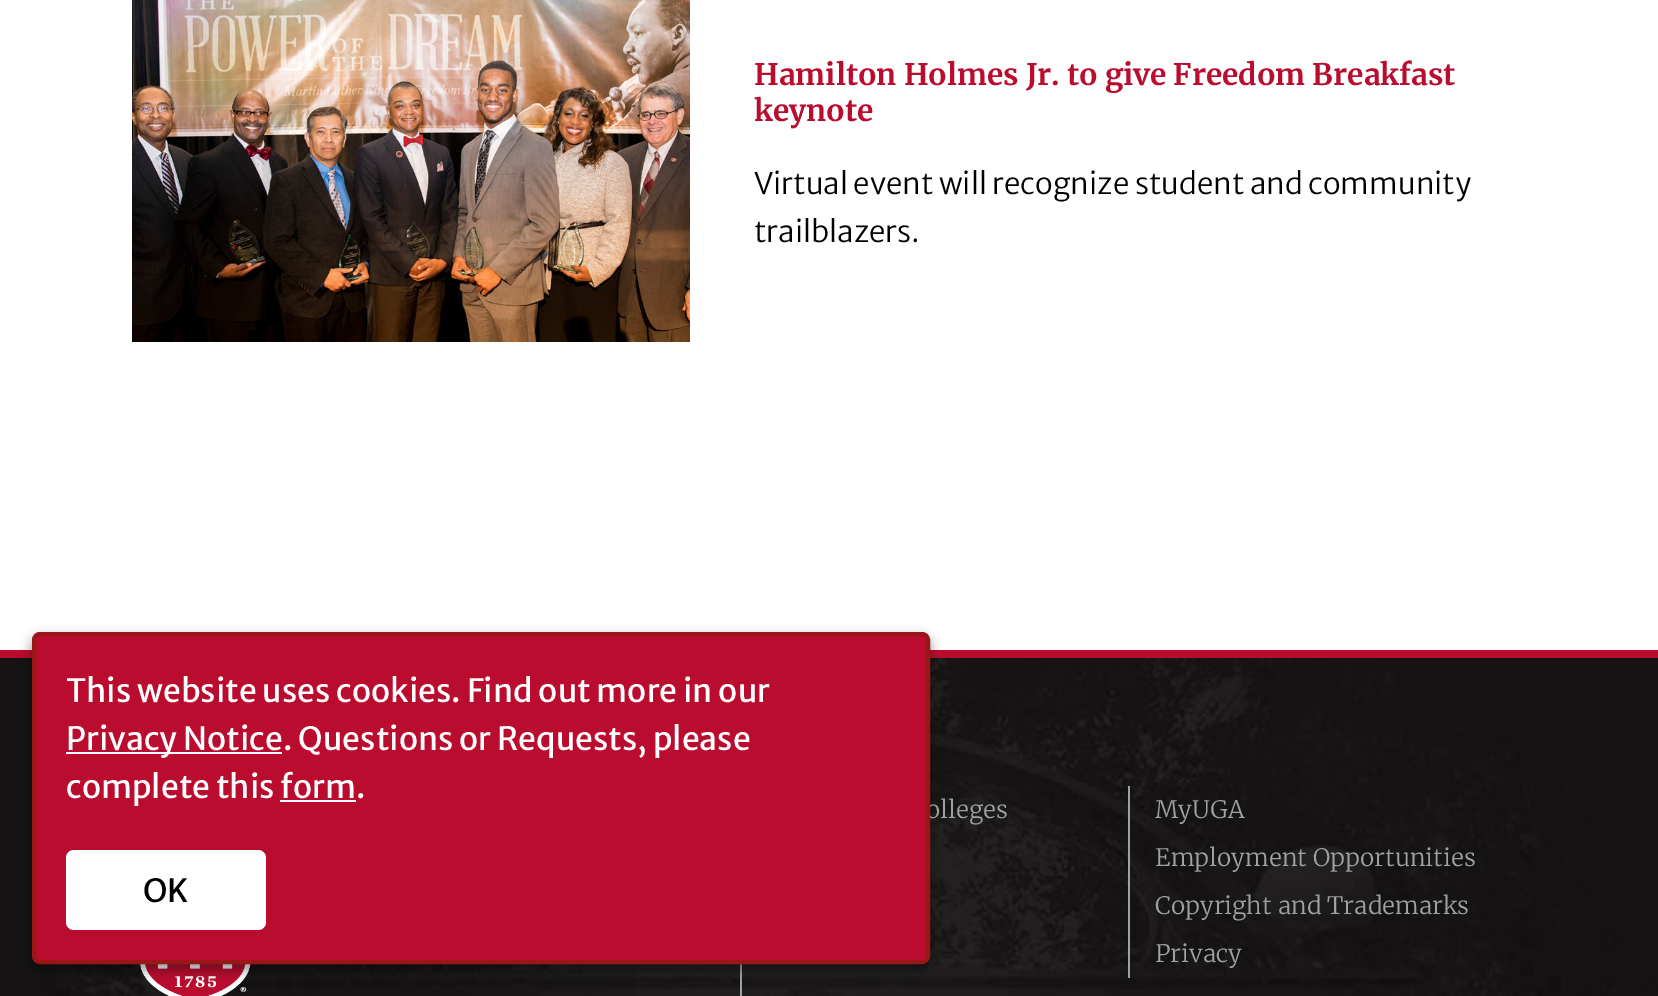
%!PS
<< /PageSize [1658 996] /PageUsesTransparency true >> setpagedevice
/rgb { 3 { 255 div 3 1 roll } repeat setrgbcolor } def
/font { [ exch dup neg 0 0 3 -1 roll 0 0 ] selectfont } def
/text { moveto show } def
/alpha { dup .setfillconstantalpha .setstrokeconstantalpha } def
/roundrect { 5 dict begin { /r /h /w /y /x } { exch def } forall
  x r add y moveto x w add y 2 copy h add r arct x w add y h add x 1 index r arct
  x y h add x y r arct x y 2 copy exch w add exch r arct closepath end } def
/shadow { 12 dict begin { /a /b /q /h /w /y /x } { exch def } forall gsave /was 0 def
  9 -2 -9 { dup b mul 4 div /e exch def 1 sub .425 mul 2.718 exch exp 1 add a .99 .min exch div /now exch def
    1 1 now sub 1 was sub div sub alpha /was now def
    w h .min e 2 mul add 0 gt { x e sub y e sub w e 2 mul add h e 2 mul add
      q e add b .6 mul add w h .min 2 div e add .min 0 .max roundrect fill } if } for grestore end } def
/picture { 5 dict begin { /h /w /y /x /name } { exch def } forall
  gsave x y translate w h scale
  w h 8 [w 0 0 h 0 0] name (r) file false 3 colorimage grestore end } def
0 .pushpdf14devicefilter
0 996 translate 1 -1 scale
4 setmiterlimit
255 255 255 rgb
0 0 1658 996 rectfill
(img_02.rgb) 0 658 1658 338 picture
186 12 47 rgb
0 650 1658 8 rectfill
158 162 162 rgb
740 964 2 32 rectfill
(img_03.rgb) 140 964 111 32 picture
0 0 0 rgb
32 638 898 332 8 6 0.25 shadow
32 638 898 332 8 6 0.18 shadow
(img_01.rgb) 132 0 558 342 picture
158 162 162 rgb
1128 786 2 192 rectfill
/Merriweather-Bold 29.6 font
186 12 47 rgb
(Hamilton Holmes Jr. to give Freedom Breakfast) 754 85 text
(keynote) 754 121 text
/MerriweatherSans-Light 29.6 font
0 0 0 rgb
(Virtual event will recognize student and community) 754 194 text
(trailblazers.) 754 242 text
/Merriweather-Light 24 font
158 162 162 rgb
(olleges) 926 818 text
186 12 47 rgb
34 634 894 328 6 roundrect gsave fill grestore
153 23 24 rgb
4 setlinewidth
stroke
255 255 255 rgb
66 850 200 80 8 roundrect fill
/MerriweatherSans-Regular 32 font
0 0 0 rgb
(OK) 143 902 text
255 255 255 rgb
(.) 356 798 text
(form) 280 798 text
254 254 254 rgb
280 800 76 2 rectfill
255 255 255 rgb
(complete this) 66 798 text
(. Questions or Requests, please) 283 750 text
254 254 254 rgb
66 752 216 2 rectfill
255 255 255 rgb
(Privacy Notice) 66 750 text
(This website uses cookies. Find out more in our) 66 702 text
/Merriweather-Light 24 font
158 162 162 rgb
(MyUGA) 1155 818 text
(Employment Opportunities) 1155 866 text
(Copyright and Trademarks) 1155 914 text
(Privacy) 1155 962 text
.poppdf14devicefilter showpage
